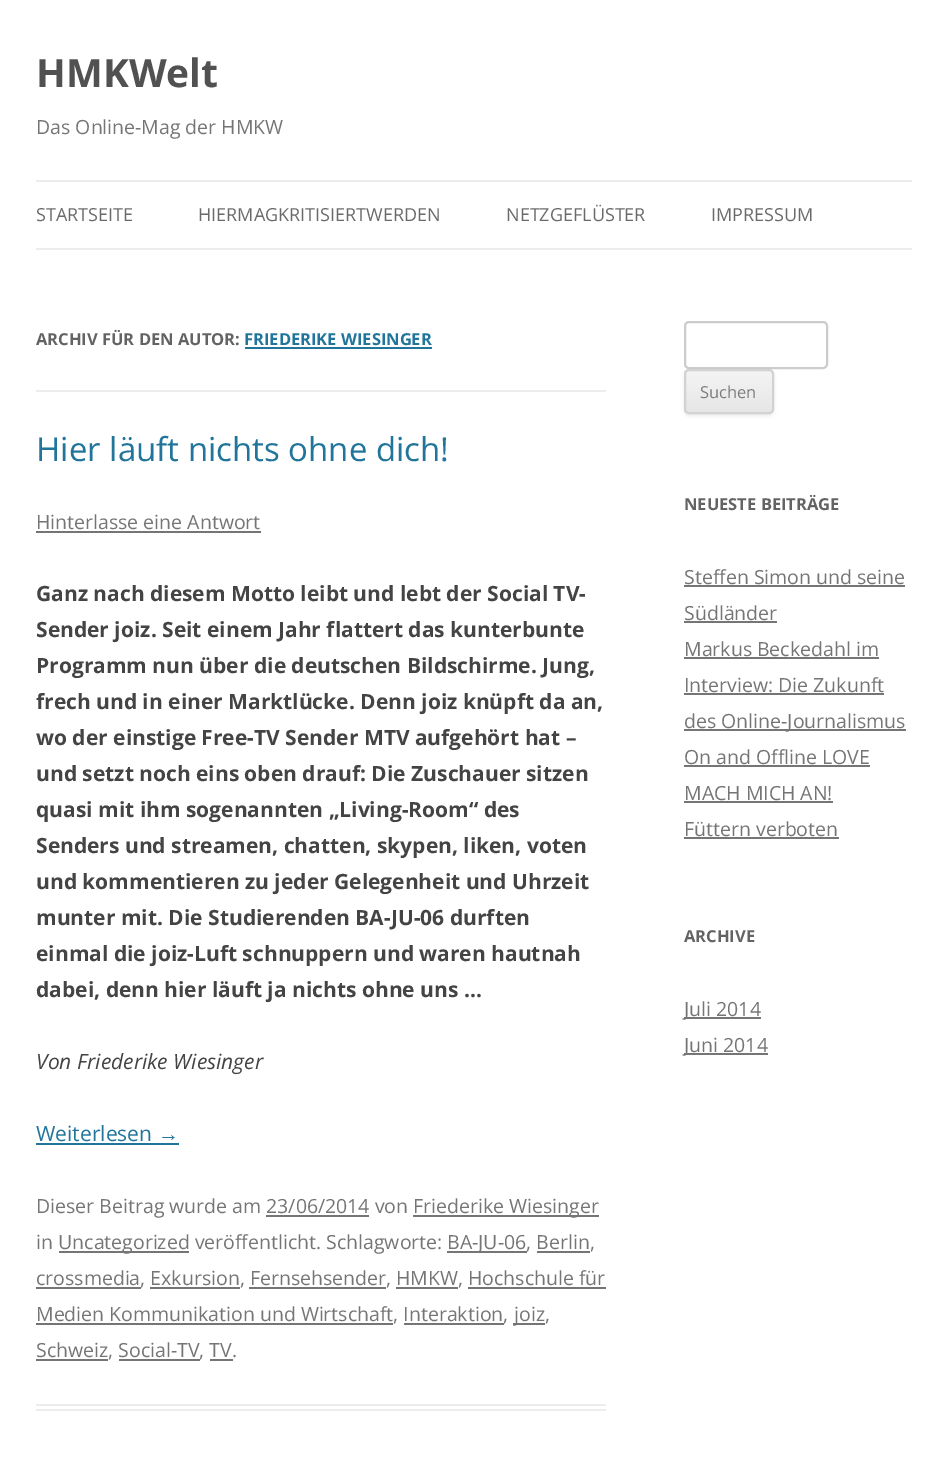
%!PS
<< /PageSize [947 1471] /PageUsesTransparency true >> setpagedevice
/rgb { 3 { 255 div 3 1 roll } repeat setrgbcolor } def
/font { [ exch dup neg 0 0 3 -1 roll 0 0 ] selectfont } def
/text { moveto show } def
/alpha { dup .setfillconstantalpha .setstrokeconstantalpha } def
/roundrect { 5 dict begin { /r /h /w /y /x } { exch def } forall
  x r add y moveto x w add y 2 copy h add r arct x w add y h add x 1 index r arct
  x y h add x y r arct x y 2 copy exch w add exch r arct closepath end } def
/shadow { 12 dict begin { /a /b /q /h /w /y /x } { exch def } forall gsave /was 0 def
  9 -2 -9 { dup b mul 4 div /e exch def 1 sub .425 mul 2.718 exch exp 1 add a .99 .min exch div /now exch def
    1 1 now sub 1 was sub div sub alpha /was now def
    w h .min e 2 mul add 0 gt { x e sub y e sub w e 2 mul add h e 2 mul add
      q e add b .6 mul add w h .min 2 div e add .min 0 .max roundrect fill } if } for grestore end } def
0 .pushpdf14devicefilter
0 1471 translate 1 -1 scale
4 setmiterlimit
255 255 255 rgb
0 0 947 1471 rectfill
237 237 237 rgb
36 180 876 2 rectfill
36 248 876 2 rectfill
36 390 570 2 rectfill
33 117 155 rgb
245 347 187 2 rectfill
237 237 237 rgb
36 1404 570 2 rectfill
36 1409 570 2 rectfill
117 117 117 rgb
36 531 225 2 rectfill
33 117 155 rgb
36 1143 143 2 rectfill
117 117 117 rgb
413 1215 186 2 rectfill
266 1215 103 2 rectfill
59 1251 130 2 rectfill
447 1251 80 2 rectfill
537 1251 53 2 rectfill
36 1287 105 2 rectfill
150 1287 90 2 rectfill
249 1287 137 2 rectfill
396 1287 62 2 rectfill
468 1287 138 2 rectfill
36 1323 357 2 rectfill
513 1323 32 2 rectfill
404 1323 100 2 rectfill
36 1359 72 2 rectfill
119 1359 81 2 rectfill
210 1359 23 2 rectfill
204 204 204 rgb
2 setlinewidth
685 322 142 46 4 roundrect stroke
64 64 64 rgb
684 371 90 45 5 1.5 0.1 shadow
gsave
684 369 90 45 5 roundrect clip newpath
gsave 684 371 moveto 90 0 rlineto 0 42 rlineto -90 0 rlineto closepath clip newpath
<< /ShadingType 2 /ColorSpace /DeviceRGB /Coords [729 371 729 413] /Extend [true true] /Function << /FunctionType 2 /Domain [0 1] /C0 [0.957 0.957 0.957] /C1 [0.902 0.902 0.902] /N 1 >> >> shfill grestore
grestore
210 210 210 rgb
685 370 88 43 4 roundrect stroke
117 117 117 rgb
684 585 221 2 rectfill
684 621 93 2 rectfill
684 657 195 2 rectfill
684 693 200 2 rectfill
684 729 222 2 rectfill
684 765 186 2 rectfill
684 801 149 2 rectfill
684 837 155 2 rectfill
684 1017 77 2 rectfill
684 1053 84 2 rectfill
/OpenSans-Bold 39 font
81 81 81 rgb
(HMKWelt) 36 87 text
/OpenSans-Regular 19.5 font
117 117 117 rgb
(Das Online-Mag der HMKW) 36 134 text
/OpenSans-Regular 18 font
106 106 106 rgb
(STARTSEITE) 36 221 text
(HIERMAGKRITISIERTWERDEN) 198 221 text
(NETZGEFLÜSTER) 506 221 text
(IMPRESSUM) 711 221 text
/OpenSans-Bold 16.5 font
99 99 99 rgb
(ARCHIV FÜR DEN AUTOR:) 36 345 text
33 117 155 rgb
(FRIEDERIKE WIESINGER) 244 345 text
/OpenSans-Regular 33 font
(Hier läuft nichts ohne dich!) 36 461 text
/OpenSans-Regular 19.5 font
117 117 117 rgb
(Hinterlasse eine Antwort) 36 529 text
/OpenSans-Bold 21 font
68 68 68 rgb
(Ganz nach diesem Motto leibt und lebt der Social TV-) 36 601 text
(Sender joiz. Seit einem Jahr flattert das kunterbunte) 36 637 text
(Programm nun über die deutschen Bildschirme. Jung,) 36 673 text
(frech und in einer Marktlücke. Denn joiz knüpft da an,) 36 709 text
(wo der einstige Free-TV Sender MTV aufgehört hat –) 36 745 text
(und setzt noch eins oben drauf: Die Zuschauer sitzen) 36 781 text
(quasi mit ihm sogenannten „Living-Room“ des) 36 817 text
(Senders und streamen, chatten, skypen, liken, voten) 36 853 text
(und kommentieren zu jeder Gelegenheit und Uhrzeit) 36 889 text
(munter mit. Die Studierenden BA-JU-06 durften) 36 925 text
(einmal die joiz-Luft schnuppern und waren hautnah) 36 961 text
(dabei, denn hier läuft ja nichts ohne uns …) 36 997 text
/OpenSans-Italic 21 font
(Von Friederike Wiesinger) 36 1069 text
/OpenSans-Regular 21 font
33 117 155 rgb
(Weiterlesen) 36 1141 text
/LiberationSans-Regular 21 font
(→) 158 1141 text
/OpenSans-Regular 19.5 font
117 117 117 rgb
(Dieser Beitrag wurde am 23/06/2014 von) 36 1213 text
(Friederike Wiesinger) 413 1213 text
(in) 36 1249 text
(Uncategorized veröffentlicht. Schlagworte:) 58 1249 text
(BA-JU-06, Berlin,) 447 1249 text
(crossmedia, Exkursion, Fernsehsender, HMKW, Hochschule für) 36 1285 text
(Medien Kommunikation und Wirtschaft, Interaktion,) 36 1321 text
(joiz,) 514 1321 text
(Schweiz, Social-TV, TV.) 36 1357 text
/OpenSans-Regular 16.5 font
124 124 124 rgb
(Suchen) 700 398 text
/OpenSans-Bold 16.5 font
99 99 99 rgb
(NEUESTE BEITRÄGE) 684 510 text
/OpenSans-Regular 19.5 font
117 117 117 rgb
(Steffen Simon und seine) 684 584 text
(Südländer) 684 620 text
(Markus Beckedahl im) 684 656 text
(Interview: Die Zukunft) 684 692 text
(des Online-Journalismus) 684 728 text
(On and Offline LOVE) 684 764 text
(MACH MICH AN!) 684 800 text
(Füttern verboten) 684 836 text
/OpenSans-Bold 16.5 font
99 99 99 rgb
(ARCHIVE) 684 942 text
/OpenSans-Regular 19.5 font
117 117 117 rgb
(Juli 2014) 684 1016 text
(Juni 2014) 684 1052 text
.poppdf14devicefilter showpage
